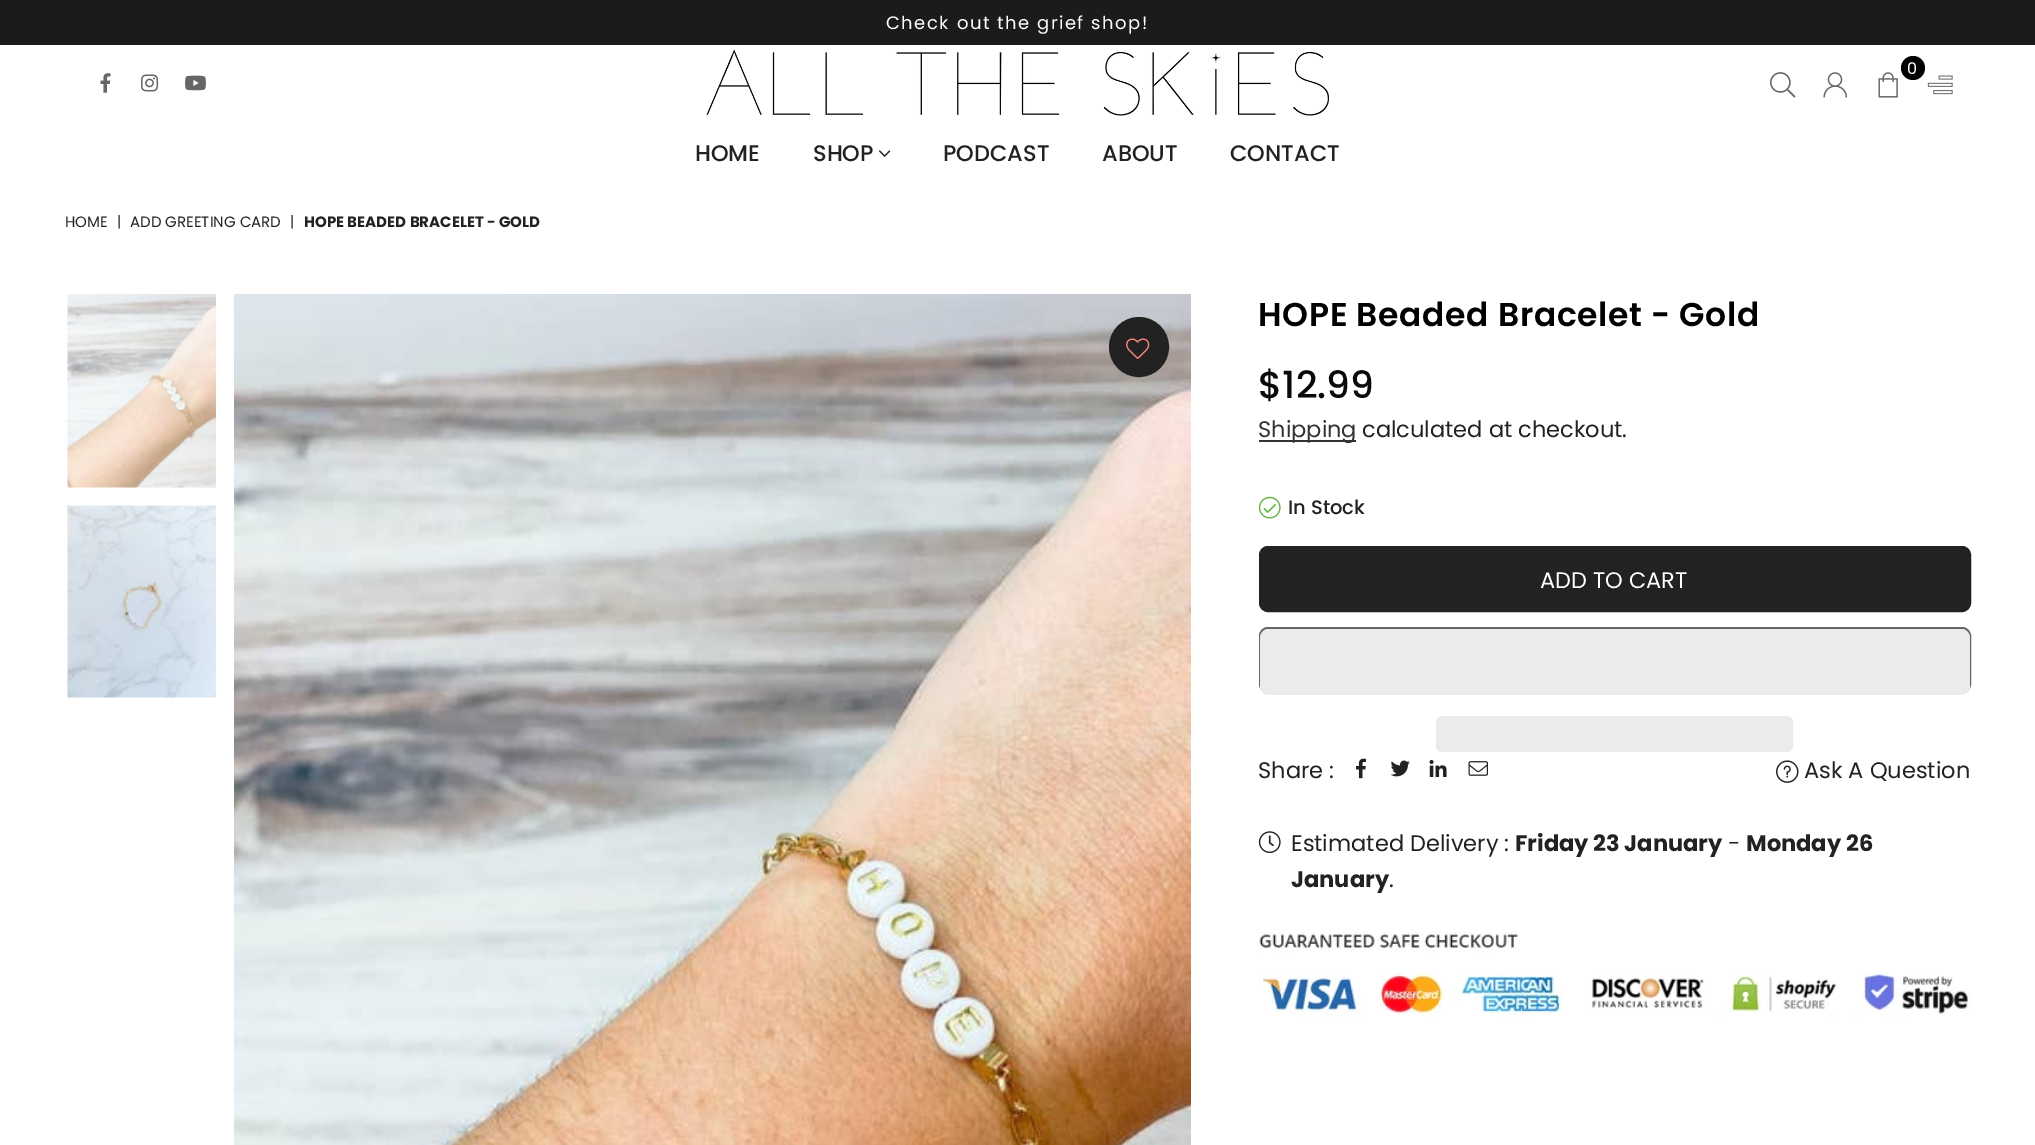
%!PS
<< /PageSize [2035 1145] >> setpagedevice
/rgb { 3 { 255 div 3 1 roll } repeat setrgbcolor } def
/font { [ exch dup neg 0 0 3 -1 roll 0 0 ] selectfont } def
/text { moveto show } def
/circle { newpath 0 360 arc closepath } def
/roundrect { 5 dict begin { /r /h /w /y /x } { exch def } forall
  x r add y moveto x w add y 2 copy h add r arct x w add y h add x 1 index r arct
  x y h add x y r arct x y 2 copy exch w add exch r arct closepath end } def
/picture { 5 dict begin { /h /w /y /x /name } { exch def } forall
  gsave x y translate w h scale
  w h 8 [w 0 0 h 0 0] name (r) file false 3 colorimage grestore end } def
0 1145 translate 1 -1 scale
4 setmiterlimit
255 255 255 rgb
0 0 2035 1145 rectfill
28 26 26 rgb
0 0 2035 45 rectfill
(img_01.rgb) 706 49 623 67 picture
0 0 0 rgb
1913 68 12 circle fill
(img_02.rgb) 1878 72 20 26 picture
(img_03.rgb) 1770 72 26 26 picture
(img_04.rgb) 1823 72 25 26 picture
(img_05.rgb) 1927 75 26 20 picture
(img_06.rgb) 100 73 11 20 picture
(img_07.rgb) 141 74 18 18 picture
(img_08.rgb) 185 75 21 16 picture
(img_09.rgb) 879 150 12 7 picture
(img_10.rgb) 67 294 149 194 picture
(img_11.rgb) 67 505 149 193 picture
(img_12.rgb) 234 294 957 851 picture
34 34 34 rgb
1139 347 29 circle gsave fill grestore
2 setlinewidth
stroke
(img_13.rgb) 1126 338 24 21 picture
51 51 51 rgb
1259 440 97 2 rectfill
(img_14.rgb) 1258 496 23 23 picture
34 34 34 rgb
1260 547 710 64 8 roundrect gsave fill grestore
stroke
102 102 102 rgb
1260 628 710 64 8 roundrect stroke
235 235 235 rgb
1260 629 710 66 9 roundrect fill
1436 716 357 36 6 roundrect fill
(img_15.rgb) 1356 758 11 21 picture
(img_16.rgb) 1390 760 20 17 picture
(img_17.rgb) 1429 760 18 17 picture
(img_18.rgb) 1468 761 20 15 picture
(img_19.rgb) 1776 760 23 23 picture
(img_20.rgb) 1258 831 23 23 picture
(img_21.rgb) 1259 932 712 85 picture
/Poppins-Regular 18 font
255 255 255 rgb
886 29 moveto 1.5 0 (Check out the grief shop!) ashow
/Poppins-Regular 16 font
(0) 1907 74 text
/Poppins-Medium 22.5 font
34 34 34 rgb
(HOME) 695 161 text
(SHOP) 813 161 text
(PODCAST) 943 161 text
(ABOUT) 1102 161 text
(CONTACT) 1230 161 text
/Poppins-Regular 15 font
(HOME) 65 227 text
(|) 117 227 text
(ADD GREETING CARD) 130 227 text
(|) 290 227 text
/Poppins-Bold 15 font
(HOPE BEADED BRACELET - GOLD) 304 227 text
/Poppins-SemiBold 33 font
0 0 0 rgb
1258 326 moveto 0.65 0 (HOPE Beaded Bracelet - Gold) ashow
/Poppins-Medium 37.5 font
9 10 10 rgb
($12.99) 1258 398 text
/Poppins-Regular 22.5 font
51 51 51 rgb
(Shipping) 1258 437 text
34 34 34 rgb
(calculated at checkout.) 1362 437 text
/Poppins-Medium 19.5 font
(In Stock) 1288 514 text
/Poppins-Regular 22.5 font
255 255 255 rgb
(ADD TO CART) 1540 588 text
34 34 34 rgb
(Share :) 1258 778 text
(Ask A Question) 1804 778 text
(Estimated Delivery :) 1291 851 text
/Poppins-Bold 22.5 font
(Friday 23 January) 1515 851 text
/Poppins-Regular 22.5 font
(-) 1728 851 text
/Poppins-Bold 22.5 font
(Monday 26) 1746 851 text
(January) 1291 887 text
/Poppins-Regular 22.5 font
(.) 1389 887 text
showpage
